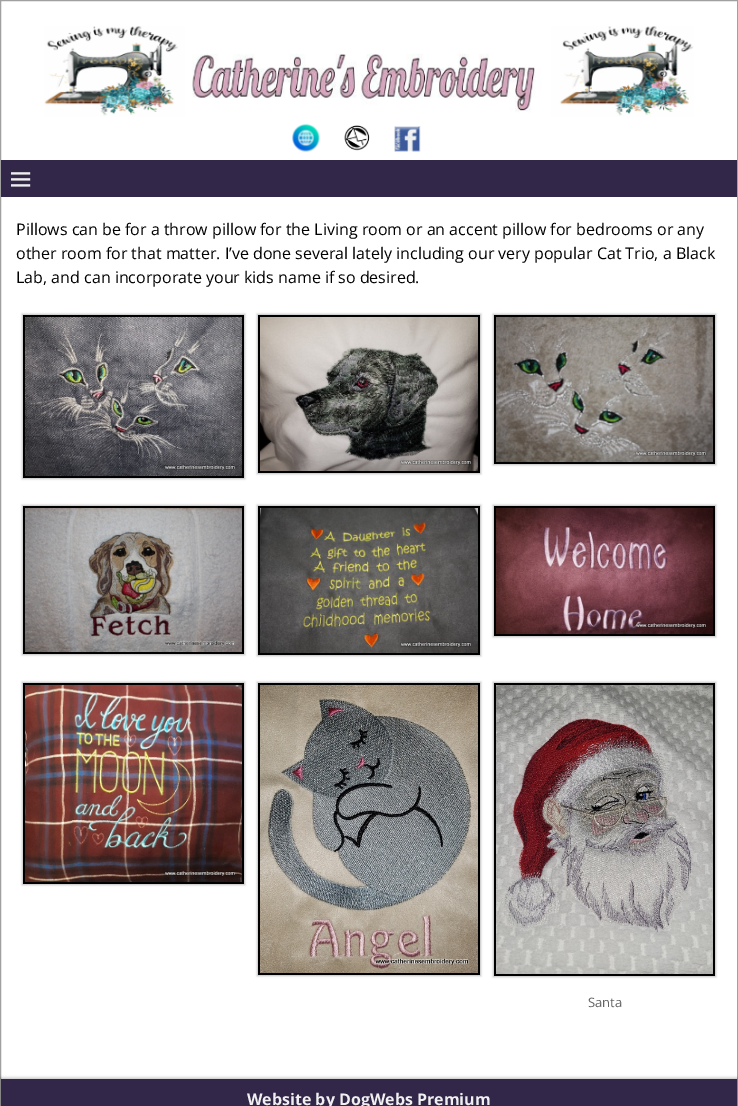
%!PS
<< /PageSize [738 1106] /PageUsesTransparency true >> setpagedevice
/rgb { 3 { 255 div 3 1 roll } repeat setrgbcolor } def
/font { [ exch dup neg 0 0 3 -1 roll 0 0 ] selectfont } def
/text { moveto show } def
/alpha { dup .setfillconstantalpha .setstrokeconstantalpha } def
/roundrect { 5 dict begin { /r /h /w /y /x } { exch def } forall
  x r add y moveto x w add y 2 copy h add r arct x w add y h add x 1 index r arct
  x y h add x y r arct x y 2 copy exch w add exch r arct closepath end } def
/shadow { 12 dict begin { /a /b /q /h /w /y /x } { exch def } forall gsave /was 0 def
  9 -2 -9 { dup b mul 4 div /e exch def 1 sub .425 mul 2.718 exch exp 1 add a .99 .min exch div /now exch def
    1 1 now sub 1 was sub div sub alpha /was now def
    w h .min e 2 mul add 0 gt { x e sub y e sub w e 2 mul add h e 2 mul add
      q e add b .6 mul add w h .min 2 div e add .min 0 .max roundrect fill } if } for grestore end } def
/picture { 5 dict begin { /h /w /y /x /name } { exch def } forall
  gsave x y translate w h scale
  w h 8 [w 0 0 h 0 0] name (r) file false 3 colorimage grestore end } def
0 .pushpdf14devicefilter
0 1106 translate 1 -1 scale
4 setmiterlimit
255 255 255 rgb
0 0 738 1106 rectfill
160 160 160 rgb
0.5 0.5 737 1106 rectstroke
(img_01.rgb) 44 26 650 126 picture
50 39 72 rgb
1 160 736 37 rectfill
(img_02.rgb) 11 172 20 15 picture
0 0 0 rgb
22 314 223 165 0 1 0.25 shadow
23 315 221 163 rectfill
(img_03.rgb) 25 317 217 159 picture
257 314 224 160 0 1 0.25 shadow
258 315 222 158 rectfill
(img_04.rgb) 260 317 218 154 picture
493 314 223 151 0 1 0.25 shadow
494 315 221 149 rectfill
(img_05.rgb) 496 317 217 145 picture
22 505 223 150 0 1 0.25 shadow
23 506 221 148 rectfill
(img_06.rgb) 25 508 217 144 picture
257 505 224 151 0 1 0.25 shadow
258 506 222 149 rectfill
(img_07.rgb) 260 508 218 145 picture
493 505 223 132 0 1 0.25 shadow
494 506 221 130 rectfill
(img_08.rgb) 496 508 217 126 picture
22 682 223 203 0 1 0.25 shadow
23 683 221 201 rectfill
(img_09.rgb) 25 685 217 197 picture
257 682 224 294 0 1 0.25 shadow
258 683 222 292 rectfill
(img_10.rgb) 260 685 218 288 picture
493 682 223 295 0 1 0.25 shadow
494 683 221 293 rectfill
(img_11.rgb) 496 685 217 289 picture
0 1078 738 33 0 1.5 0.25 shadow
50 39 72 rgb
1 1079 736 27 rectfill
/OpenSans-Regular 16 font
0 0 0 rgb
(Pillows can be for a throw pillow for the Living room or an accent pillow for bedrooms or any) 16 235 text
(other room for that matter. I’ve done several lately including our very popular Cat Trio, a Black) 16 259 text
(Lab, and can incorporate your kids name if so desired.) 16 283 text
/OpenSans-Regular 13 font
99 99 99 rgb
(Santa) 588 1007 text
/OpenSans-Bold 16 font
240 240 240 rgb
(Website by DogWebs Premium) 247 1105 text
.poppdf14devicefilter showpage
